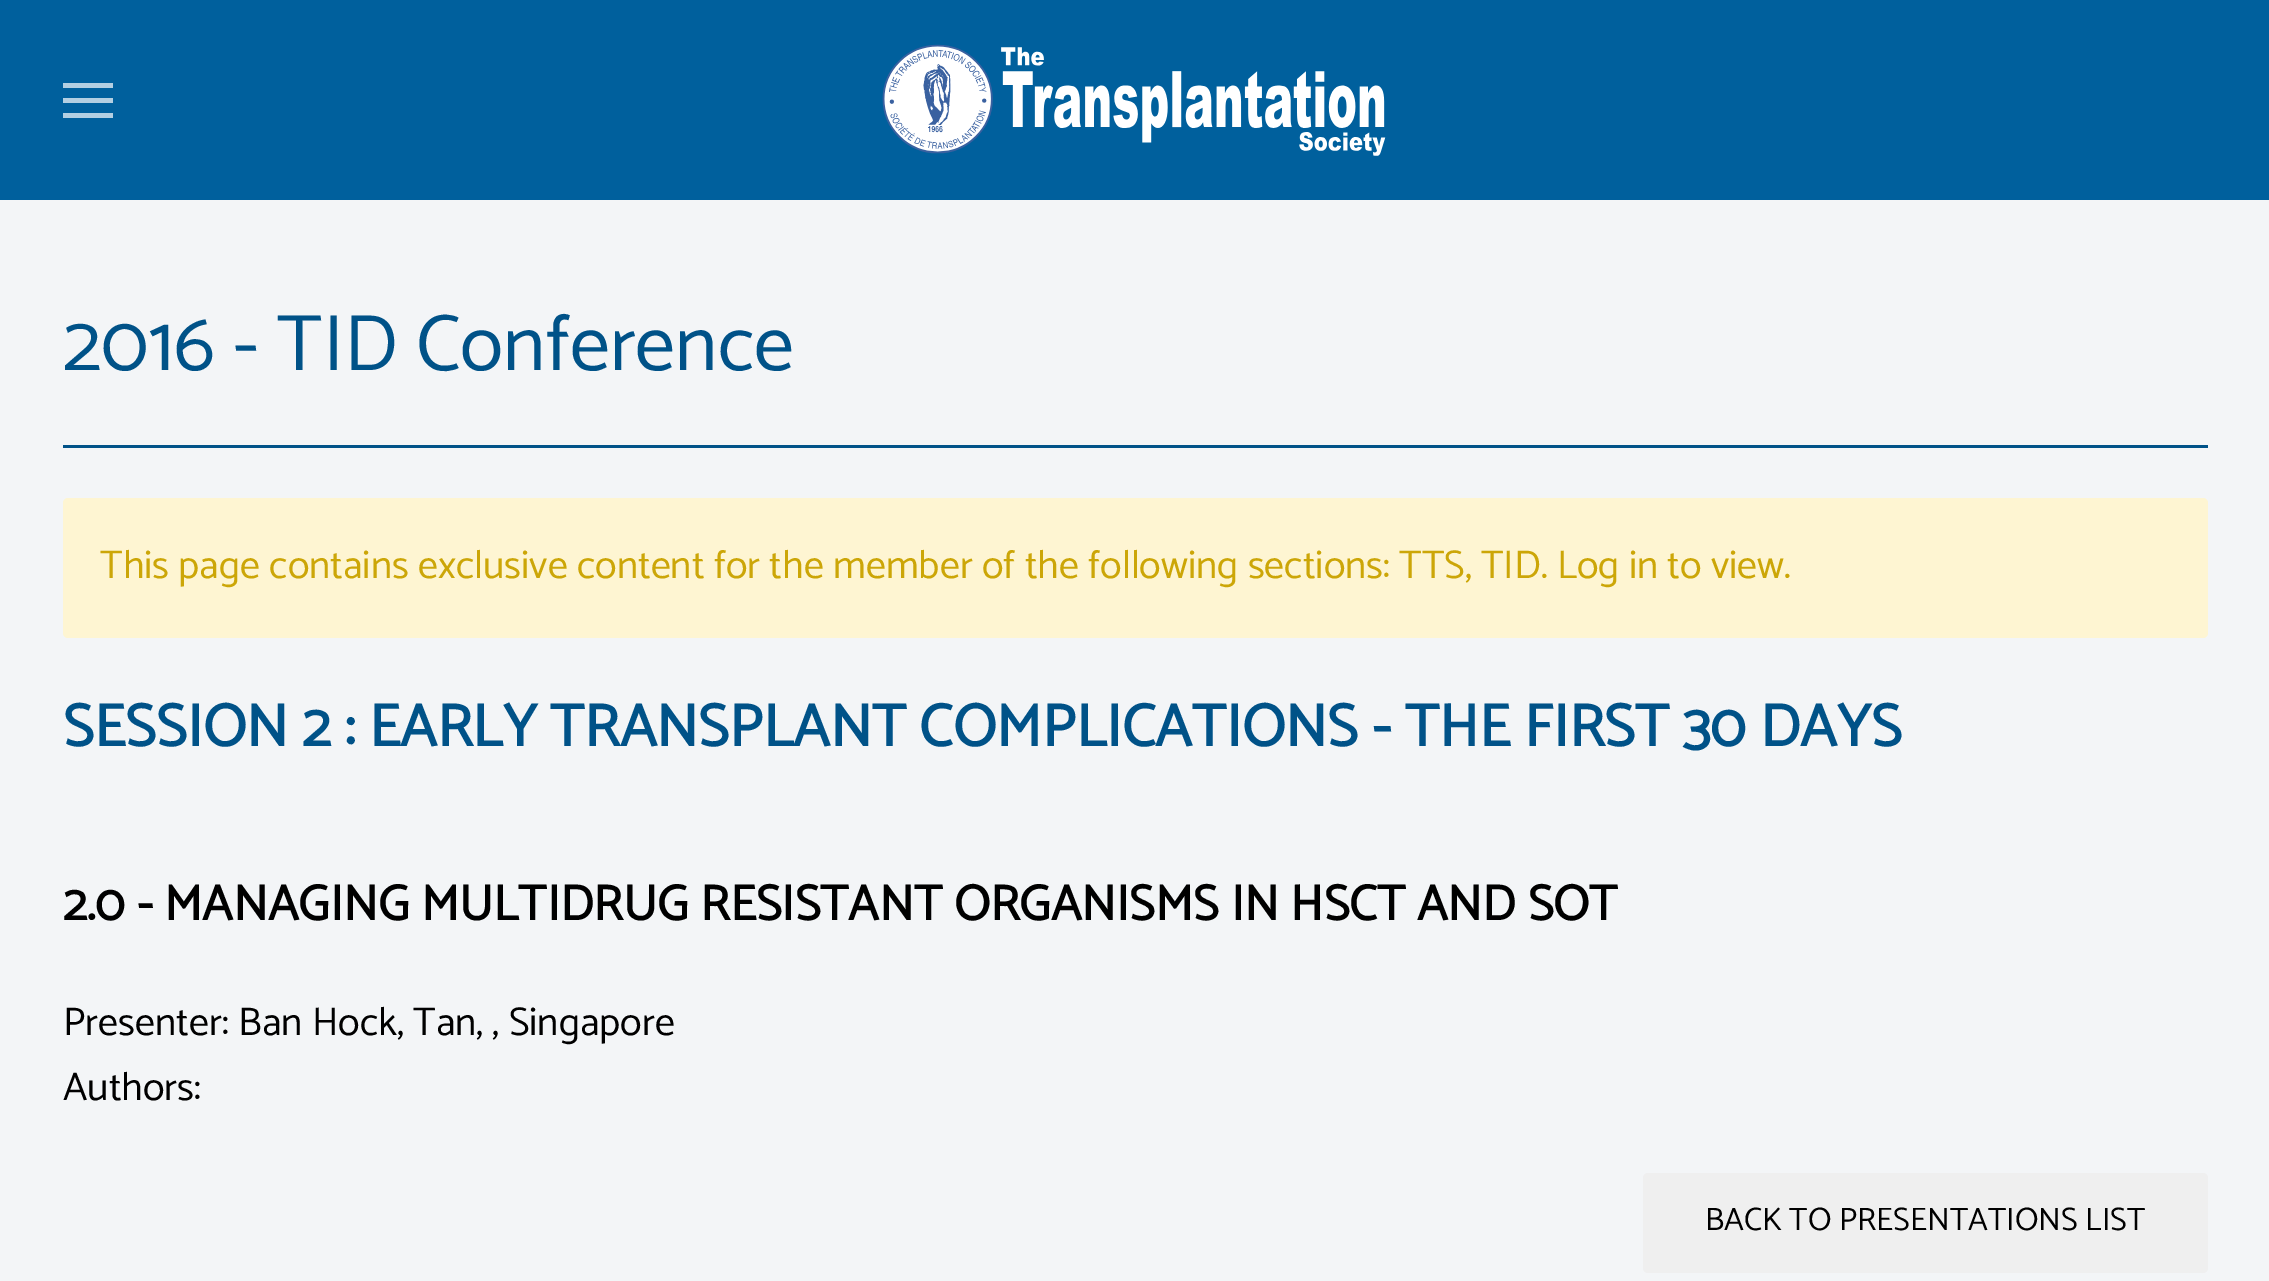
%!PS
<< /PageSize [2269 1281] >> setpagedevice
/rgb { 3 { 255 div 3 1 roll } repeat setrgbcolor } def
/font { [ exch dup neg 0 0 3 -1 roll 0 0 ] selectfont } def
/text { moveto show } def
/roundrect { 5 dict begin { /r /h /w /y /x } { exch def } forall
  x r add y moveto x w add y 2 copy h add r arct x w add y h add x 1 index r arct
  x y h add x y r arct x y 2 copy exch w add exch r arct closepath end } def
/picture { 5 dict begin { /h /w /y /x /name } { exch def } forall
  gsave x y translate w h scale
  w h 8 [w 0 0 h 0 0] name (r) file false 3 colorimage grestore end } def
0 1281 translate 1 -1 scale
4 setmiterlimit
243 245 247 rgb
0 0 2269 1281 rectfill
0 96 157 rgb
0 0 2269 200 rectfill
179 207 226 rgb
63 83 50 5 rectfill
63 98 50 5 rectfill
63 113 50 5 rectfill
(img_01.rgb) 882 44 504 112 picture
0 82 136 rgb
63 445 2145 3 rectfill
254 245 210 rgb
63 498 2145 140 5 roundrect fill
239 239 239 rgb
1643 1173 565 100 5 roundrect fill
/Catamaran-Regular 80 font
0 82 136 rgb
(2016 - TID Conference) 63 370 text
/Catamaran-Regular 40 font
204 166 7 rgb
(This page contains exclusive content for the member of the following sections: TTS, TID. Log in to view.) 100 578 text
/Catamaran-Bold 60 font
0 82 136 rgb
(SESSION 2 : EARLY TRANSPLANT COMPLICATIONS - THE FIRST 30 DAYS) 63 746 text
/Catamaran-Bold 50 font
0 0 0 rgb
(2.0 - MANAGING MULTIDRUG RESISTANT ORGANISMS IN HSCT AND SOT) 63 920 text
/Catamaran-Regular 40 font
(Presenter: Ban Hock, Tan, , Singapore) 63 1035 text
(Authors:) 63 1100 text
/Catamaran-Regular 32.5 font
(BACK TO PRESENTATIONS LIST) 1705 1230 text
showpage
